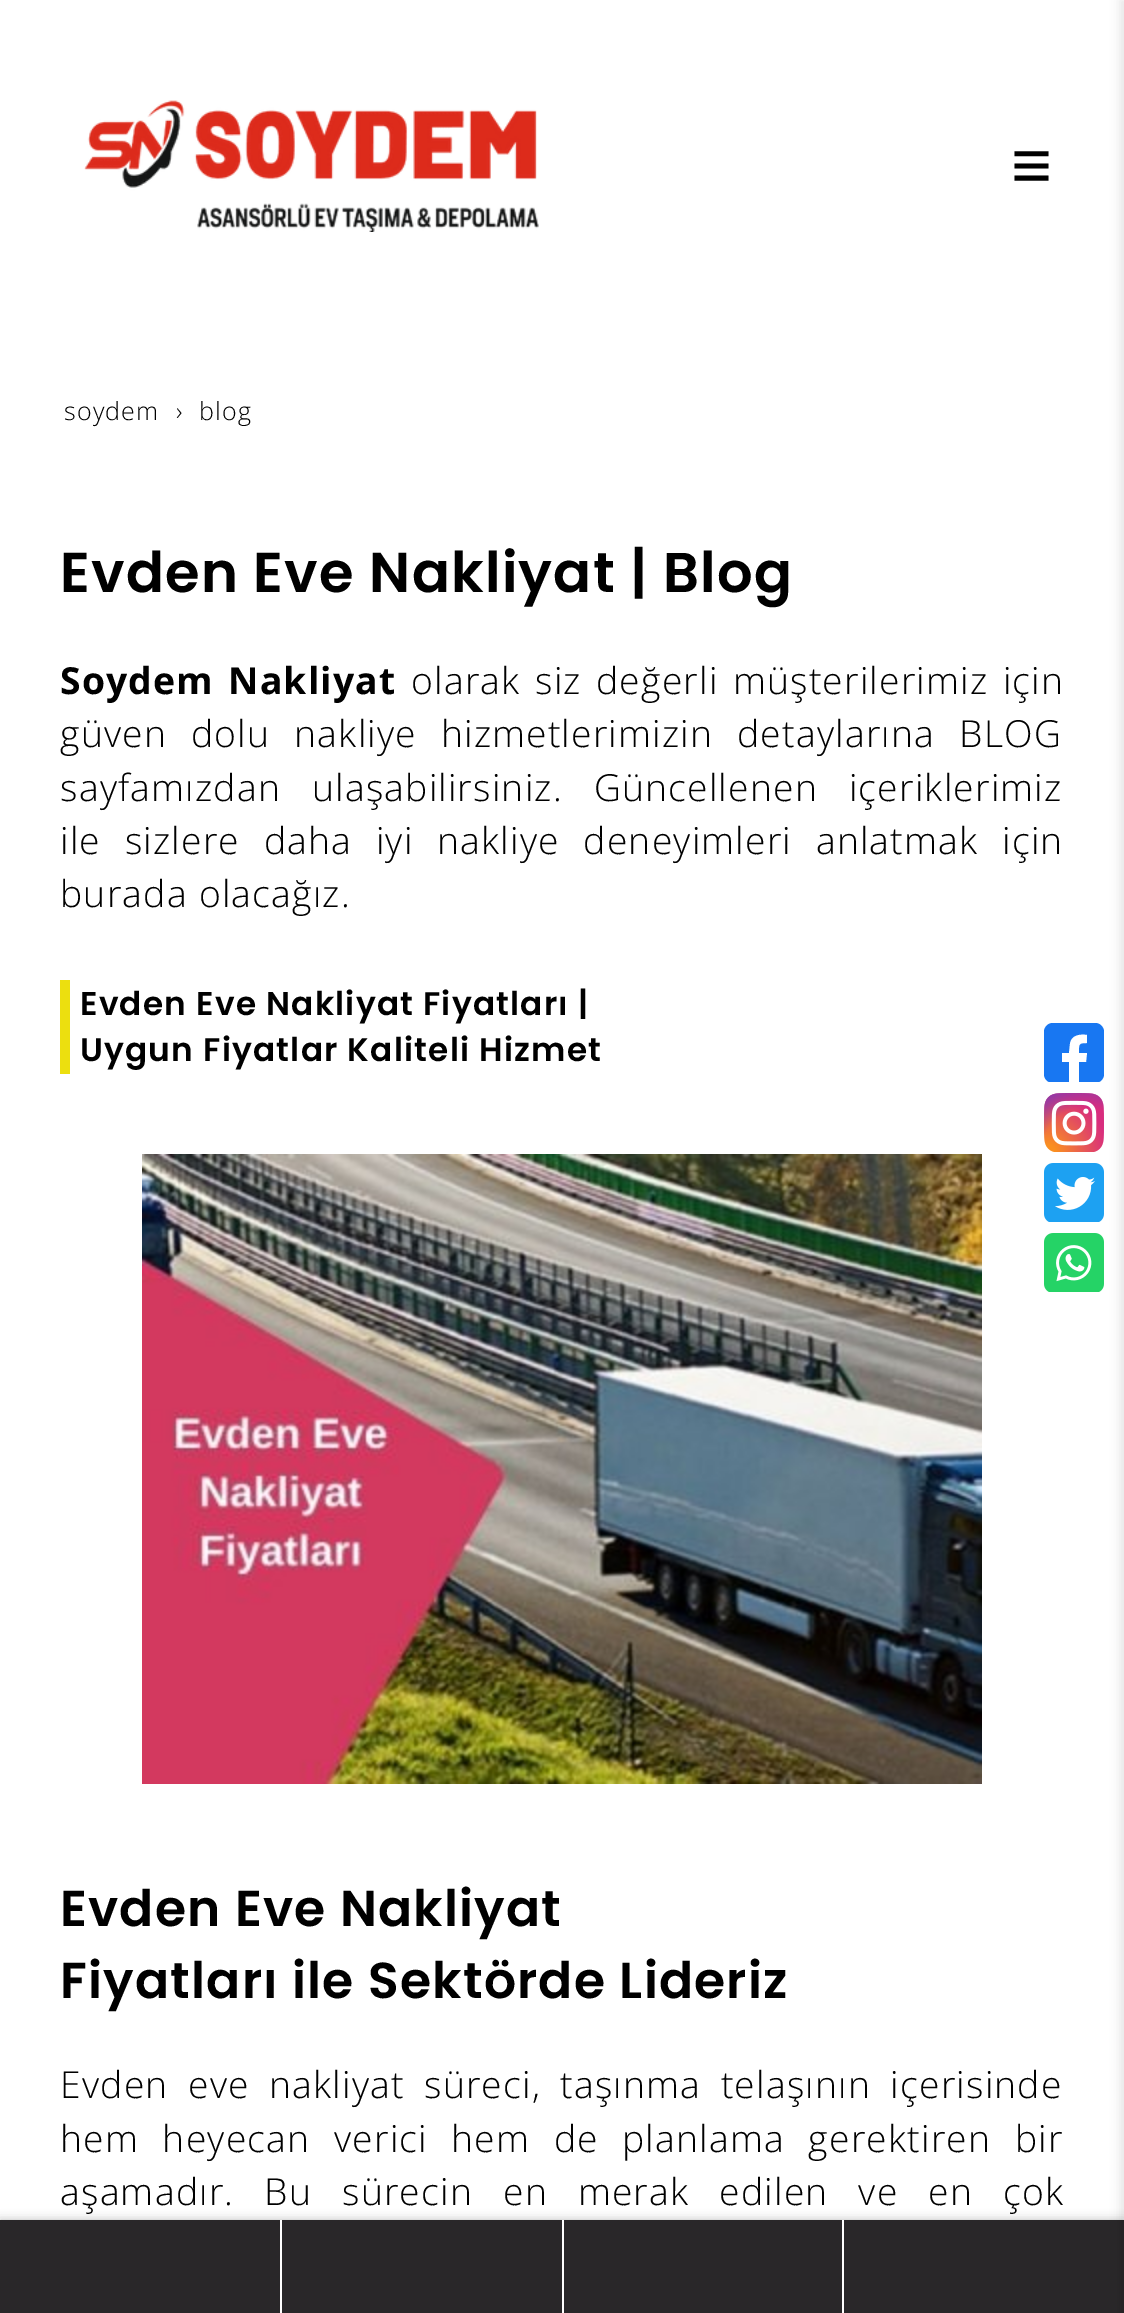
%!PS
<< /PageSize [1124 2313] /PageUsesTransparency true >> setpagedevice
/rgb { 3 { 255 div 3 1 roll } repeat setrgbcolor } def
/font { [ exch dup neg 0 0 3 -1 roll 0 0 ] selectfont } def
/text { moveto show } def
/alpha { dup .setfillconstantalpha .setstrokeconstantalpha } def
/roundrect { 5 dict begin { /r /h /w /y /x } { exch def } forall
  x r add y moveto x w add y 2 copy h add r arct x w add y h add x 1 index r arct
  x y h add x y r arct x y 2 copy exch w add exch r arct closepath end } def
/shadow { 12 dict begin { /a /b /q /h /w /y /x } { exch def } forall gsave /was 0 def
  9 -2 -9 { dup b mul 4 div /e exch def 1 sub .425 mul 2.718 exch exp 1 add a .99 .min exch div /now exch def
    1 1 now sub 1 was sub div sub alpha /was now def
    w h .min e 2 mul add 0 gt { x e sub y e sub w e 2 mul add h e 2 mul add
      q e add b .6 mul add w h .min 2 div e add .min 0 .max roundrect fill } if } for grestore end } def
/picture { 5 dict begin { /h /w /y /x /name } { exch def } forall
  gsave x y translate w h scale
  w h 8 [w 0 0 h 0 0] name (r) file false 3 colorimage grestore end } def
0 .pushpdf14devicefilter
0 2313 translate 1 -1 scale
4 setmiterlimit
255 255 255 rgb
0 0 1124 2313 rectfill
(img_01.rgb) 84 100 455 132 picture
236 223 15 rgb
60 980 10 94 rectfill
(img_02.rgb) 142 1154 840 630 picture
gsave
1044 1022 60 60 rectclip
24 119 242 rgb
1044 1023 60 60 9 roundrect fill
255 255 255 rgb
1086 1062 moveto 1 -9 rlineto -8 0 rlineto 0 -9 -1 -10 8 -10 rcurveto 0 -8 rlineto -7 -1 -16 0 -17 9 rcurveto -1 9 rlineto -7 0 rlineto 0 9 rlineto 7 0 rlineto 0 21 rlineto 10 0 rlineto 0 -21 rlineto closepath fill
grestore
(img_03.rgb) 1044 1093 60 59 picture
(img_04.rgb) 1044 1163 60 59 picture
(img_05.rgb) 1044 1233 60 59 picture
0 0 0 rgb
0 2220 1124 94 0 5 0.25 shadow
41 39 41 rgb
0 2220 1124 93 rectfill
255 255 255 rgb
280 2220 2 93 rectfill
562 2220 2 93 rectfill
842 2220 2 93 rectfill
0 0 0 rgb
1120 0 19 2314 0 5 0.1 shadow
/LiberationSans-Regular 70 font
(≡) 1011 189 text
/OpenSans-Light 25 font
64 420 moveto 1.2 0 (soydem) ashow
176 420 moveto 1.2 0 (›) ashow
199 420 moveto 1.2 0 (blog) ashow
/Poppins-SemiBold 56 font
60 592 moveto 1.2 0 (Evden Eve Nakliyat | Blog) ashow
/OpenSans-Bold 37.3 font
60 694 moveto 3 0 32 1.2 0 (Soydem Nakliyat) awidthshow
/OpenSans-Light 37.3 font
411 694 moveto 3.5 0 32 1.2 0 (olarak siz değerli müşterilerimiz için) awidthshow
60 747 moveto 13 0 32 1.2 0 (güven dolu nakliye hizmetlerimizin detaylarına BLOG) awidthshow
60 801 moveto 20 0 32 1.2 0 (sayfamızdan ulaşabilirsiniz. Güncellenen içeriklerimiz) awidthshow
60 854 moveto 12.75 0 32 1.2 0 (ile sizlere daha iyi nakliye deneyimleri anlatmak için) awidthshow
60 907 moveto 1.2 0 (burada olacağız.) ashow
/Poppins-SemiBold 32.75 font
80 1015 moveto 1.2 0 (Evden Eve Nakliyat Fiyatları |) ashow
80 1061 moveto 1.2 0 (Uygun Fiyatlar Kaliteli Hizmet) ashow
/Poppins-SemiBold 50.4 font
60 1926 moveto 1.2 0 (Evden Eve Nakliyat) ashow
60 1998 moveto 1.2 0 (Fiyatları ile Sektörde Lideriz) ashow
/OpenSans-Light 37.3 font
60 2098 moveto 8.5 0 32 1.2 0 (Evden eve nakliyat süreci, taşınma telaşının içerisinde) awidthshow
60 2152 moveto 12.5 0 32 1.2 0 (hem heyecan verici hem de planlama gerektiren bir) awidthshow
60 2205 moveto 19 0 32 1.2 0 (aşamadır. Bu sürecin en merak edilen ve en çok) awidthshow
.poppdf14devicefilter showpage
